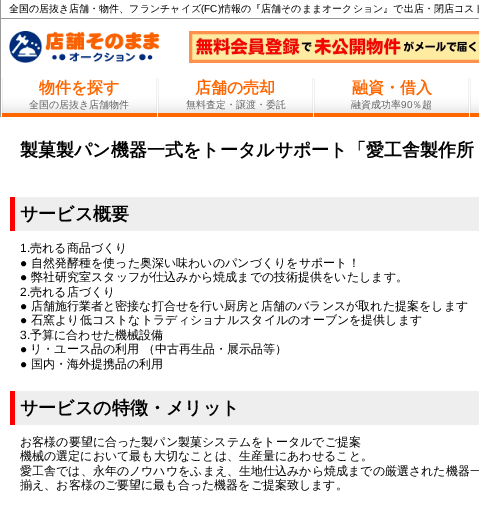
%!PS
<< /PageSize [479 512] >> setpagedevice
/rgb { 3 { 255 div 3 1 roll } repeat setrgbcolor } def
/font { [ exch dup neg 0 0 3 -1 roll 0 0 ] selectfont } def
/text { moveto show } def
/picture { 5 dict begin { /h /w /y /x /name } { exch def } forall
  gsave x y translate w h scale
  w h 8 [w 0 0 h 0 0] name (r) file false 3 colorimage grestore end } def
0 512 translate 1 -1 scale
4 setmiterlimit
255 255 255 rgb
0 0 479 512 rectfill
153 153 153 rgb
0 18 479 1 rectfill
0 0 1 117 rectfill
(img_01.rgb) 9 31 150 32 picture
(img_02.rgb) 189 31 290 32 picture
(img_03.rgb) 2 78 155 35 picture
255 102 0 rgb
2 113 155 4 rectfill
(img_03.rgb) 158 78 155 35 picture
158 113 155 4 rectfill
(img_03.rgb) 314 78 155 35 picture
314 113 155 4 rectfill
(img_04.rgb) 470 78 9 35 picture
470 113 9 4 rectfill
238 238 238 rgb
15 197 464 34 rectfill
255 0 0 rgb
10 197 5 34 rectfill
238 238 238 rgb
15 391 464 34 rectfill
255 0 0 rgb
10 391 5 34 rectfill
/WenQuanYiZenHei-Medium 10 font
0 0 0 rgb
(全国の居抜き店舗・物件、フランチャイズ) 9 12 text
/LiberationSans-Regular 10 font
(\(FC\)) 201 12 text
/WenQuanYiZenHei-Medium 10 font
(情報の『店舗そのままオークション』で出店・閉店コスト) 221 12 text
/WenQuanYiZenHei-Bold 16 font
255 102 0 rgb
(物件を探す) 39 93 text
/WenQuanYiZenHei-Medium 10 font
102 102 102 rgb
(全国の居抜き店舗物件) 29 108 text
/WenQuanYiZenHei-Bold 16 font
255 102 0 rgb
(店舗の売却) 195 93 text
/WenQuanYiZenHei-Medium 10 font
102 102 102 rgb
(無料査定・譲渡・委託) 186 108 text
/WenQuanYiZenHei-Bold 16 font
255 102 0 rgb
(融資・借入) 352 93 text
/WenQuanYiZenHei-Medium 10 font
102 102 102 rgb
(融資成功率) 351 108 text
/LiberationSans-Regular 10 font
(90) 401 108 text
/WenQuanYiZenHei-Medium 10 font
(％超) 412 108 text
/WenQuanYiZenHei-Bold 18 font
0 0 0 rgb
(製菓製パン機器一式をトータルサポート「愛工舎製作所) 20 156 text
(サービス概要) 20 220 text
/LiberationSans-Regular 12 font
(1.) 20 252 text
/WenQuanYiZenHei-Medium 12 font
(売れる商品づくり) 30 252 text
/LiberationSans-Regular 12 font
(●) 20 267 text
/WenQuanYiZenHei-Medium 12 font
(自然発酵種を使った奥深い味わいのパンづくりをサポート！) 31 267 text
/LiberationSans-Regular 12 font
(●) 20 281 text
/WenQuanYiZenHei-Medium 12 font
(弊社研究室スタッフが仕込みから焼成までの技術提供をいたします。) 31 281 text
/LiberationSans-Regular 12 font
(2.) 20 296 text
/WenQuanYiZenHei-Medium 12 font
(売れる店づくり) 30 296 text
/LiberationSans-Regular 12 font
(●) 20 310 text
/WenQuanYiZenHei-Medium 12 font
(店舗施行業者と密接な打合せを行い厨房と店舗のバランスが取れた提案をします) 31 310 text
/LiberationSans-Regular 12 font
(●) 20 324 text
/WenQuanYiZenHei-Medium 12 font
(石窯より低コストなトラディショナルスタイルのオーブンを提供します) 31 324 text
/LiberationSans-Regular 12 font
(3.) 20 339 text
/WenQuanYiZenHei-Medium 12 font
(予算に合わせた機械設備) 30 339 text
/LiberationSans-Regular 12 font
(●) 20 353 text
/WenQuanYiZenHei-Medium 12 font
(リ・ユース品の利用 （中古再生品・展示品等）) 30 353 text
/LiberationSans-Regular 12 font
(●) 20 368 text
/WenQuanYiZenHei-Medium 12 font
(国内・海外提携品の利用) 31 368 text
/WenQuanYiZenHei-Bold 18 font
(サービスの特徴・メリット) 20 414 text
/WenQuanYiZenHei-Medium 12 font
(お客様の要望に合った製パン製菓システムをトータルでご提案) 20 446 text
(機械の選定において最も大切なことは、生産量にあわせること。) 20 460 text
(愛工舎では、永年のノウハウをふまえ、生地仕込みから焼成までの厳選された機器一) 20 475 text
(揃え、お客様のご要望に最も合った機器をご提案致します。) 20 489 text
showpage
